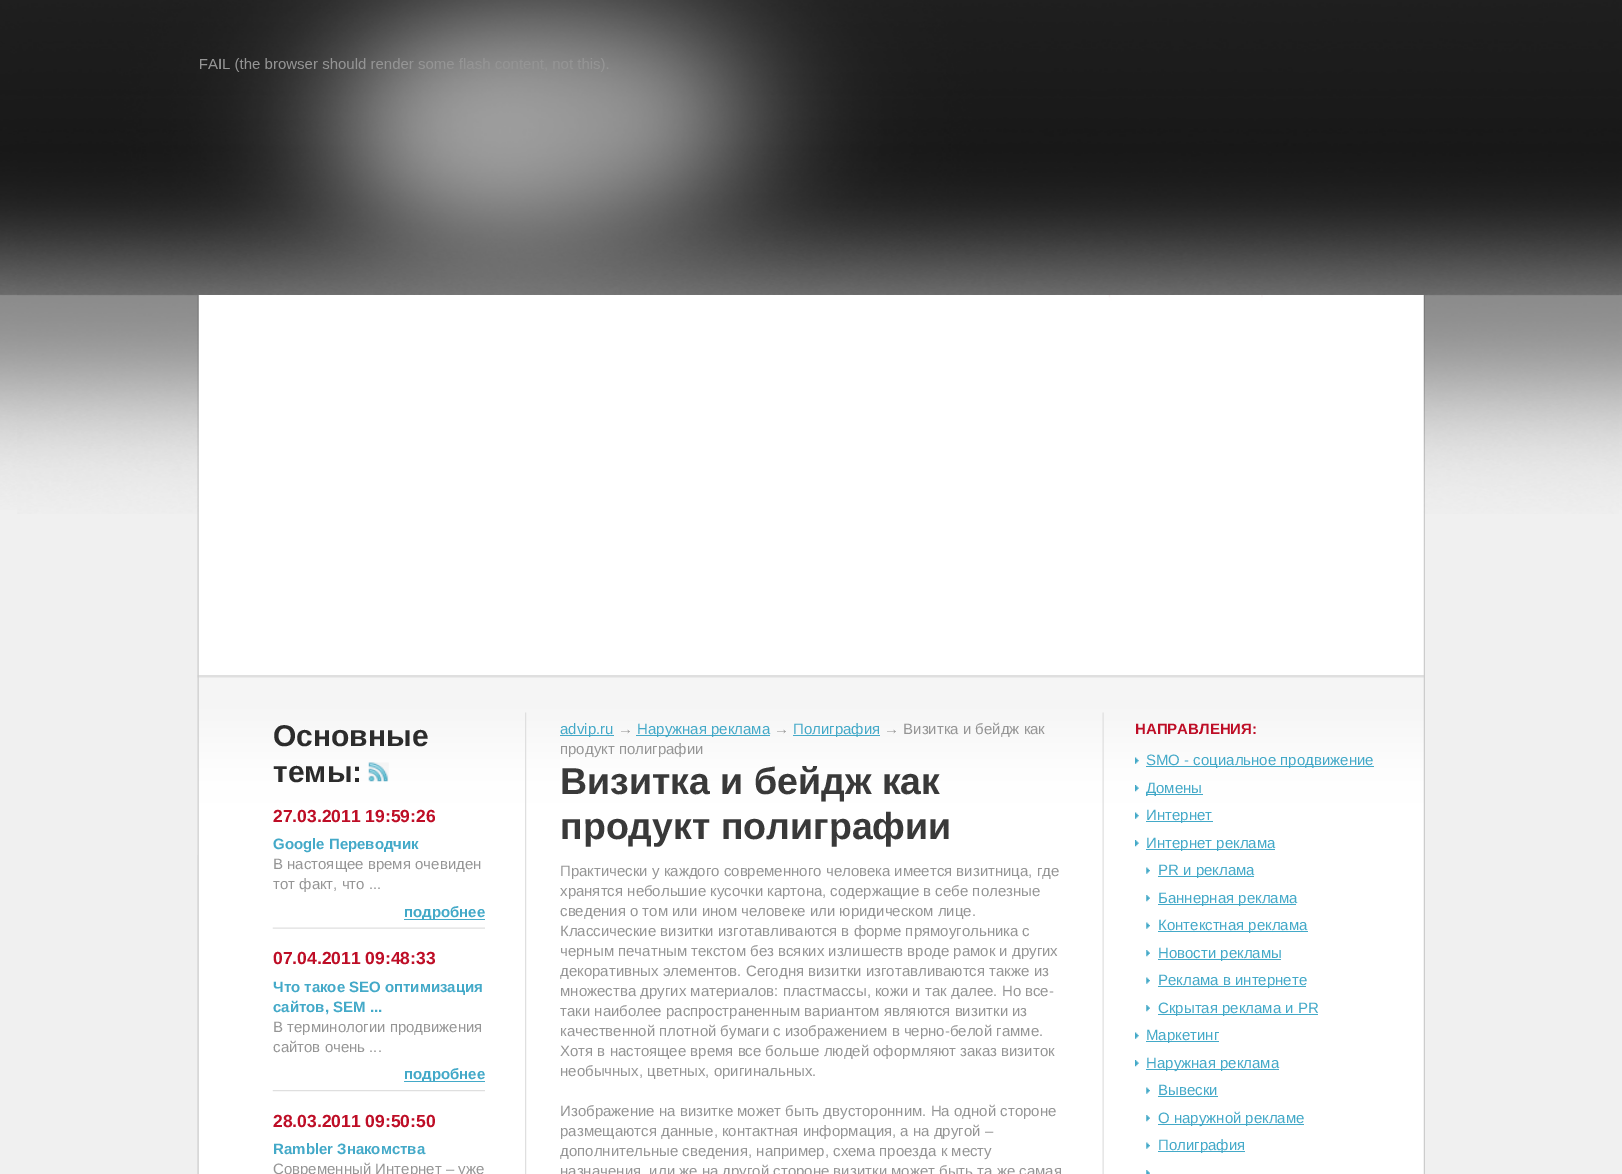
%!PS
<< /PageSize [1622 1174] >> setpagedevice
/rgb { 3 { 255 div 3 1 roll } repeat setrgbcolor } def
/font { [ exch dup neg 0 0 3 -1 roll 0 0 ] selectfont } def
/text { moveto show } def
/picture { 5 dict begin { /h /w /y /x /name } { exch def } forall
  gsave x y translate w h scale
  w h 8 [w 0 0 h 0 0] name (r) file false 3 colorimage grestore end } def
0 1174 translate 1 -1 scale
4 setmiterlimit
240 240 240 rgb
0 0 1622 1174 rectfill
(img_01.rgb) 0 0 1622 510 picture
(img_02.rgb) 17 0 1602 514 picture
(img_03.rgb) 197 295 1228 380 picture
(img_04.rgb) 200 58 409 14 picture
255 255 255 rgb
198 855 1226 319 rectfill
(img_05.rgb) 197 675 1227 180 picture
(img_06.rgb) 197 675 2 499 picture
(img_07.rgb) 1423 675 2 499 picture
(img_08.rgb) 525 712 2 462 picture
(img_09.rgb) 1102 712 2 462 picture
(img_10.rgb) 368 762 21 20 picture
(img_11.rgb) 272 927 213 2 picture
67 169 200 rgb
404 919 81 1 rectfill
(img_12.rgb) 272 1090 213 2 picture
404 1081 81 1 rectfill
560 735 54 1 rectfill
636 735 134 1 rectfill
793 735 87 1 rectfill
(img_13.rgb) 1135 757 4 7 picture
1146 766 228 1 rectfill
(img_14.rgb) 1135 785 4 7 picture
1146 794 57 1 rectfill
(img_15.rgb) 1135 812 4 7 picture
1146 821 67 1 rectfill
(img_16.rgb) 1135 840 4 7 picture
1146 849 129 1 rectfill
(img_17.rgb) 1146 867 4 7 picture
1158 876 96 1 rectfill
(img_18.rgb) 1146 895 4 7 picture
1158 904 138 1 rectfill
(img_17.rgb) 1146 922 4 7 picture
1158 931 150 1 rectfill
(img_18.rgb) 1146 950 4 7 picture
1158 959 123 1 rectfill
(img_17.rgb) 1146 977 4 7 picture
1158 986 148 1 rectfill
(img_18.rgb) 1146 1005 4 7 picture
1158 1014 160 1 rectfill
(img_15.rgb) 1135 1032 4 7 picture
1146 1041 73 1 rectfill
(img_16.rgb) 1135 1060 4 7 picture
1146 1069 133 1 rectfill
(img_17.rgb) 1146 1087 4 7 picture
1158 1096 60 1 rectfill
(img_18.rgb) 1146 1115 4 7 picture
1158 1124 146 1 rectfill
(img_17.rgb) 1146 1142 4 7 picture
1158 1151 87 1 rectfill
(img_19.rgb) 1146 1170 4 4 picture
/LiberationSans-Regular 15 font
149 149 149 rgb
(I) 218 69 text
/LiberationSans-Bold 30 font
44 44 44 rgb
(Основные) 273 746 text
(темы:) 273 782 text
/LiberationSans-Bold 17.5 font
190 13 38 rgb
(27.03.2011 19:59:26) 273 822 text
/LiberationSans-Bold 15 font
67 169 200 rgb
(Google Переводчик) 273 849 text
/LiberationSans-Regular 15 font
149 149 149 rgb
(В настоящее время очевиден) 273 869 text
(тот факт, что ...) 273 889 text
/LiberationSans-Bold 15 font
67 169 200 rgb
(подробнее) 404 917 text
/LiberationSans-Bold 17.5 font
190 13 38 rgb
(07.04.2011 09:48:33) 273 964 text
/LiberationSans-Bold 15 font
67 169 200 rgb
(Что такое SEO оптимизация) 273 992 text
(сайтов, SEM ...) 273 1012 text
/LiberationSans-Regular 15 font
149 149 149 rgb
(В терминологии продвижения) 273 1032 text
(сайтов очень ...) 273 1052 text
/LiberationSans-Bold 15 font
67 169 200 rgb
(подробнее) 404 1079 text
/LiberationSans-Bold 17.5 font
190 13 38 rgb
(28.03.2011 09:50:50) 273 1127 text
/LiberationSans-Bold 15 font
67 169 200 rgb
(Rambler Знакомства) 273 1154 text
/LiberationSans-Regular 15 font
149 149 149 rgb
(Современный Интернет – уже) 273 1174 text
67 169 200 rgb
(advip.ru) 560 734 text
149 149 149 rgb
(→) 618 734 text
67 169 200 rgb
(Наружная реклама) 637 734 text
149 149 149 rgb
(→) 774 734 text
67 169 200 rgb
(Полиграфия) 793 734 text
149 149 149 rgb
(→ Визитка и бейдж как) 884 734 text
(продукт полиграфии) 560 754 text
/LiberationSans-Bold 37.5 font
57 57 57 rgb
(Визитка и бейдж как) 560 794 text
(продукт полиграфии) 560 839 text
/LiberationSans-Regular 15 font
149 149 149 rgb
(Практически у каждого современного человека имеется визитница, где) 560 876 text
(хранятся небольшие кусочки картона, содержащие в себе полезные) 560 896 text
(сведения о том или ином человеке или юридическом лице.) 560 916 text
(Классические визитки изготавливаются в форме прямоугольника с) 560 936 text
(черным печатным текстом без всяких излишеств вроде рамок и других) 560 956 text
(декоративных элементов. Сегодня визитки изготавливаются также из) 560 976 text
(множества других материалов: пластмассы, кожи и так далее. Но все-) 560 996 text
(таки наиболее распространенным вариантом являются визитки из) 560 1016 text
(качественной плотной бумаги с изображением в черно-белой гамме.) 560 1036 text
(Хотя в настоящее время все больше людей оформляют заказ визиток) 560 1056 text
(необычных, цветных, оригинальных.) 560 1076 text
(Изображение на визитке может быть двусторонним. На одной стороне) 560 1116 text
(размещаются данные, контактная информация, а на другой –) 560 1136 text
(дополнительные сведения, например, схема проезда к месту) 560 1156 text
(назначения, или же на другой стороне визитки может быть та же самая) 560 1176 text
/LiberationSans-Bold 15 font
190 13 38 rgb
(НАПРАВЛЕНИЯ:) 1135 734 text
/LiberationSans-Regular 15 font
67 169 200 rgb
(SMO - социальное продвижение) 1146 765 text
(Домены) 1146 793 text
(Интернет) 1146 820 text
(Интернет реклама) 1146 848 text
(PR и реклама) 1158 875 text
(Баннерная реклама) 1158 903 text
(Контекстная реклама) 1158 930 text
(Новости рекламы) 1158 958 text
(Реклама в интернете) 1158 985 text
(Скрытая реклама и PR) 1158 1013 text
(Маркетинг) 1146 1040 text
(Наружная реклама) 1146 1068 text
(Вывески) 1158 1095 text
(О наружной рекламе) 1158 1123 text
(Полиграфия) 1158 1150 text
showpage
